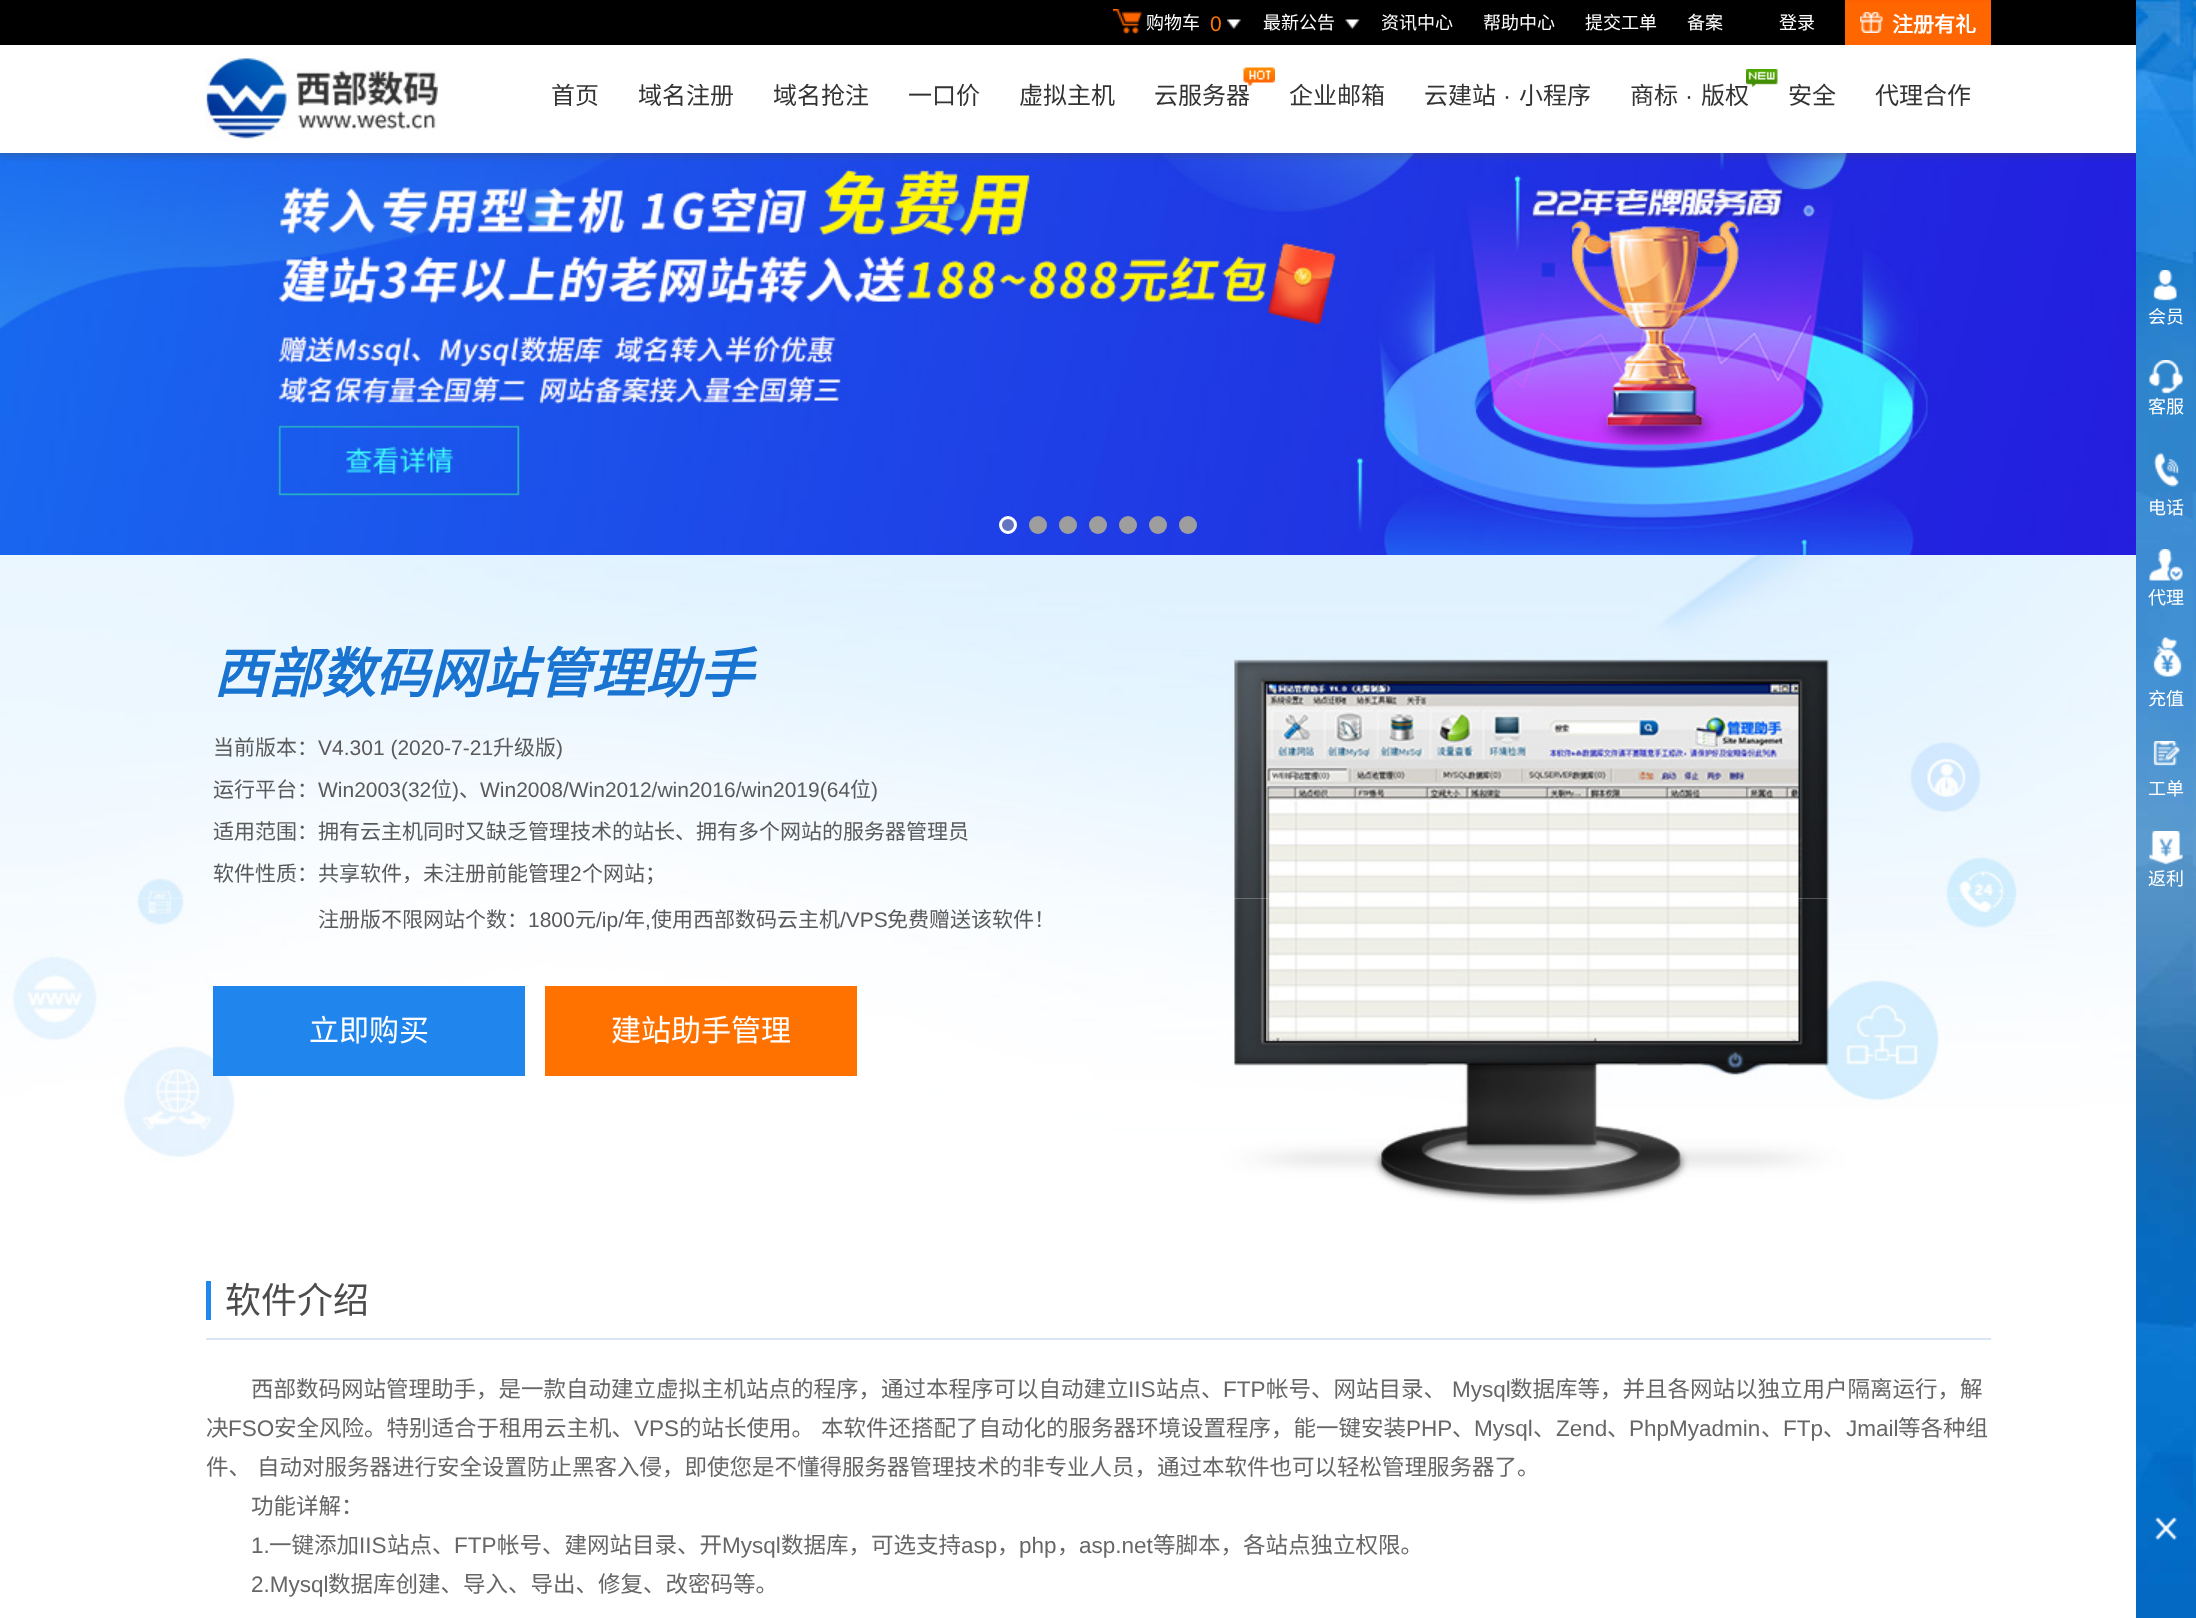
<!DOCTYPE html>
<meta charset="utf-8">
<style>body { margin: 0 } canvas { display: block }</style>
<canvas id="canvas" width="2196" height="1618"></canvas>
<script type="module">
  const canvas = document.getElementById("canvas");
  const ctx = canvas.getContext("2d");
  ctx.miterLimit = 4;
  ctx.fontKerning = "normal";
  async function loadImage(src) {
    const img = new Image();
    img.src = src;
    await img.decode();
    return img;
  }

  ctx.fillStyle = "#ffffff";
  ctx.fillRect(0, 0, 2196, 1618);
  ctx.drawImage(await loadImage("img8.png"), 0, 153, 2136, 402);
  ctx.save();
  ctx.beginPath();
  ctx.rect(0, 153, 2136, 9);
  ctx.clip();
  ctx.fillStyle = "rgba(70, 70, 70, 0.39)";
  ctx.filter = "blur(4px)";
  ctx.beginPath();
  ctx.rect(0, 2, 2196, 153);
  ctx.fill();
  ctx.filter = "none";
  ctx.restore();
  ctx.fillStyle = "#000000";
  ctx.fillRect(0, 0, 2136, 45);
  ctx.drawImage(await loadImage("img1.png"), 1113, 9, 29, 25);
  ctx.font = "18px Noto Sans CJK SC";
  ctx.fillStyle = "#ffffff";
  ctx.fillText("购物车", 1146, 29);
  ctx.font = "21px Liberation Sans";
  ctx.fillStyle = "#fe7402";
  ctx.fillText("0", 1210, 31);
  ctx.drawImage(await loadImage("img2.png"), 1227, 19, 14, 10);
  ctx.font = "18px Noto Sans CJK SC";
  ctx.fillStyle = "#ffffff";
  ctx.fillText("最新公告", 1263, 29);
  ctx.drawImage(await loadImage("img3.png"), 1345, 19, 15, 10);
  ctx.fillText("资讯中心", 1381, 29);
  ctx.fillText("帮助中心", 1483, 29);
  ctx.fillText("提交工单", 1585, 29);
  ctx.fillText("备案", 1687, 29);
  ctx.fillText("登录", 1779, 29);
  ctx.fillStyle = "#ff6600";
  ctx.fillRect(1845, 2, 146, 43);
  ctx.fillStyle = "#ff6000";
  ctx.fillRect(1845, 0, 146, 2);
  ctx.drawImage(await loadImage("img4.png"), 1860, 12, 23, 21);
  ctx.font = "bold 21px Noto Sans CJK SC";
  ctx.fillStyle = "#ffffff";
  ctx.fillText("注册有礼", 1892, 32);
  ctx.drawImage(await loadImage("img5.png"), 205, 57, 233, 84);
  ctx.font = "24px Noto Sans CJK SC";
  ctx.fillStyle = "#333333";
  ctx.fillText("首页", 551, 104);
  ctx.fillText("域名注册", 638, 104);
  ctx.fillText("域名抢注", 773, 104);
  ctx.fillText("一口价", 908, 104);
  ctx.fillText("虚拟主机", 1019, 104);
  ctx.fillText("云服务器", 1154, 104);
  ctx.drawImage(await loadImage("img6.png"), 1243, 67, 32, 19);
  ctx.fillText("企业邮箱", 1289, 104);
  ctx.fillText("云建站", 1424, 104);
  ctx.font = "24px Liberation Sans";
  ctx.fillText("·", 1503, 104);
  ctx.font = "24px Noto Sans CJK SC";
  ctx.fillText("小程序", 1519, 104);
  ctx.fillText("版权", 1701, 104);
  ctx.drawImage(await loadImage("img7.png"), 1746, 69, 32, 18);
  ctx.fillText("商标", 1630, 104);
  ctx.font = "24px Liberation Sans";
  ctx.fillText("·", 1685, 104);
  ctx.font = "24px Noto Sans CJK SC";
  ctx.fillText("安全", 1788, 104);
  ctx.fillText("代理合作", 1875, 104);
  ctx.fillStyle = "#6574bf";
  ctx.beginPath();
  ctx.arc(1008, 525, 7.5, 0, Math.PI * 2);
  ctx.fill();
  ctx.strokeStyle = "#ffffff";
  ctx.lineWidth = 3;
  ctx.stroke();
  ctx.fillStyle = "#9f9e9e";
  ctx.beginPath();
  ctx.arc(1038, 525, 9, 0, Math.PI * 2);
  ctx.fill();
  ctx.beginPath();
  ctx.arc(1068, 525, 9, 0, Math.PI * 2);
  ctx.fill();
  ctx.beginPath();
  ctx.arc(1098, 525, 9, 0, Math.PI * 2);
  ctx.fill();
  ctx.beginPath();
  ctx.arc(1128, 525, 9, 0, Math.PI * 2);
  ctx.fill();
  ctx.beginPath();
  ctx.arc(1158, 525, 9, 0, Math.PI * 2);
  ctx.fill();
  ctx.beginPath();
  ctx.arc(1188, 525, 9, 0, Math.PI * 2);
  ctx.fill();
  ctx.drawImage(await loadImage("img9.png"), 2136, 0, 60, 1618);
  ctx.drawImage(await loadImage("img10.png"), 2153, 270, 24, 31);
  ctx.font = "18px Noto Sans CJK SC";
  ctx.fillStyle = "#ffffff";
  ctx.fillText("会员", 2148, 323);
  ctx.drawImage(await loadImage("img11.png"), 2149, 360, 34, 34);
  ctx.fillText("客服", 2148, 413);
  ctx.drawImage(await loadImage("img12.png"), 2153, 453, 26, 34);
  ctx.fillText("电话", 2148, 514);
  ctx.drawImage(await loadImage("img13.png"), 2149, 549, 34, 32);
  ctx.fillText("代理", 2148, 604);
  ctx.drawImage(await loadImage("img14.png"), 2153, 637, 29, 40);
  ctx.fillText("充值", 2148, 705);
  ctx.drawImage(await loadImage("img15.png"), 2153, 741, 27, 25);
  ctx.fillText("工单", 2148, 795);
  ctx.drawImage(await loadImage("img16.png"), 2149, 831, 34, 34);
  ctx.fillText("返利", 2148, 885);
  ctx.drawImage(await loadImage("img17.png"), 2155, 1517, 22, 24);
  ctx.drawImage(await loadImage("img18.png"), 0, 555, 2136, 344);
  ctx.font = "italic bold 54px Noto Sans CJK SC";
  ctx.fillStyle = "#1974d1";
  ctx.fillText("西部数码网站管理助手", 213, 693);
  ctx.font = "21px Noto Sans CJK SC";
  ctx.fillStyle = "#5a5a5a";
  ctx.fillText("当前版本：", 213, 755);
  ctx.font = "21px Liberation Sans";
  ctx.fillText("V4.301 (2020-7-21", 318, 755);
  ctx.font = "21px Noto Sans CJK SC";
  ctx.fillText("升级版", 493, 755);
  ctx.font = "21px Liberation Sans";
  ctx.fillText(")", 556, 755);
  ctx.font = "21px Noto Sans CJK SC";
  ctx.fillText("运行平台：", 213, 797);
  ctx.font = "21px Liberation Sans";
  ctx.fillText("Win2003(32", 318, 797);
  ctx.font = "21px Noto Sans CJK SC";
  ctx.fillText("位", 431, 797);
  ctx.font = "21px Liberation Sans";
  ctx.fillText(")", 452, 797);
  ctx.font = "21px Noto Sans CJK SC";
  ctx.fillText("、", 459, 797);
  ctx.font = "21px Liberation Sans";
  ctx.fillText("Win2008/Win2012/win2016/win2019(64", 480, 797);
  ctx.font = "21px Noto Sans CJK SC";
  ctx.fillText("位", 850, 797);
  ctx.font = "21px Liberation Sans";
  ctx.fillText(")", 871, 797);
  ctx.font = "21px Noto Sans CJK SC";
  ctx.fillText("适用范围：拥有云主机同时又缺乏管理技术的站长、拥有多个网站的服务器管理员", 213, 839);
  ctx.fillText("软件性质：共享软件，未注册前能管理", 213, 881);
  ctx.font = "21px Liberation Sans";
  ctx.fillText("2", 570, 881);
  ctx.font = "21px Noto Sans CJK SC";
  ctx.fillText("个网站；", 582, 881);
  ctx.drawImage(await loadImage("img19.png"), 0, 898, 2136, 306);
  ctx.fillText("注册版不限网站个数：", 318, 927);
  ctx.font = "21px Liberation Sans";
  ctx.fillText("1800", 528, 927);
  ctx.font = "21px Noto Sans CJK SC";
  ctx.fillText("元", 575, 927);
  ctx.font = "21px Liberation Sans";
  ctx.fillText("/ip/", 596, 927);
  ctx.font = "21px Noto Sans CJK SC";
  ctx.fillText("年", 624, 927);
  ctx.font = "21px Liberation Sans";
  ctx.fillText(",", 645, 927);
  ctx.font = "21px Noto Sans CJK SC";
  ctx.fillText("使用西部数码云主机", 651, 927);
  ctx.font = "21px Liberation Sans";
  ctx.fillText("/VPS", 840, 927);
  ctx.font = "21px Noto Sans CJK SC";
  ctx.fillText("免费赠送该软件！", 887, 927);
  ctx.fillStyle = "#2086ee";
  ctx.fillRect(213, 986, 312, 90);
  ctx.font = "30px Noto Sans CJK SC";
  ctx.fillStyle = "#ffffff";
  ctx.fillText("立即购买", 309, 1041);
  ctx.fillStyle = "#ff7200";
  ctx.fillRect(545, 986, 312, 90);
  ctx.fillStyle = "#ffffff";
  ctx.fillText("建站助手管理", 611, 1041);
  ctx.fillStyle = "#d9e6f6";
  ctx.fillRect(206, 1338, 1785, 2);
  ctx.fillStyle = "#2087ed";
  ctx.fillRect(206, 1281, 5, 39);
  ctx.font = "36px Noto Sans CJK SC";
  ctx.fillStyle = "#4c4c4c";
  ctx.fillText("软件介绍", 225, 1313);
  ctx.font = "22.5px Noto Sans CJK SC";
  ctx.fillStyle = "#666666";
  ctx.fillText("西部数码网站管理助手，是一款自动建立虚拟主机站点的程序，通过本程序可以自动建立", 251, 1397);
  ctx.font = "22.5px Liberation Sans";
  ctx.fillText("IIS", 1128, 1397);
  ctx.font = "22.5px Noto Sans CJK SC";
  ctx.fillText("站点、", 1156, 1397);
  ctx.font = "22.5px Liberation Sans";
  ctx.fillText("FTP", 1223, 1397);
  ctx.font = "22.5px Noto Sans CJK SC";
  ctx.fillText("帐号、网站目录、", 1266, 1397);
  ctx.font = "22.5px Liberation Sans";
  ctx.fillText("Mysql", 1452, 1397);
  ctx.font = "22.5px Noto Sans CJK SC";
  ctx.fillText("数据库等，并且各网站以独立用户隔离运行，解", 1510, 1397);
  ctx.fillText("决", 206, 1436);
  ctx.font = "22.5px Liberation Sans";
  ctx.fillText("FSO", 228, 1436);
  ctx.font = "22.5px Noto Sans CJK SC";
  ctx.fillText("安全风险。特别适合于租用云主机、", 274, 1436);
  ctx.font = "22.5px Liberation Sans";
  ctx.fillText("VPS", 634, 1436);
  ctx.font = "22.5px Noto Sans CJK SC";
  ctx.fillText("的站长使用。", 679, 1436);
  ctx.fillText("本软件还搭配了自动化的服务器环境设置程序，能一键安装", 821, 1436);
  ctx.font = "22.5px Liberation Sans";
  ctx.fillText("PHP", 1406, 1436);
  ctx.font = "22.5px Noto Sans CJK SC";
  ctx.fillText("、", 1452, 1436);
  ctx.font = "22.5px Liberation Sans";
  ctx.fillText("Mysql", 1474, 1436);
  ctx.font = "22.5px Noto Sans CJK SC";
  ctx.fillText("、", 1533, 1436);
  ctx.font = "22.5px Liberation Sans";
  ctx.fillText("Zend", 1556, 1436);
  ctx.font = "22.5px Noto Sans CJK SC";
  ctx.fillText("、", 1607, 1436);
  ctx.font = "22.5px Liberation Sans";
  ctx.fillText("PhpMyadmin", 1629, 1436);
  ctx.font = "22.5px Noto Sans CJK SC";
  ctx.fillText("、", 1761, 1436);
  ctx.font = "22.5px Liberation Sans";
  ctx.fillText("FTp", 1783, 1436);
  ctx.font = "22.5px Noto Sans CJK SC";
  ctx.fillText("、", 1823, 1436);
  ctx.font = "22.5px Liberation Sans";
  ctx.fillText("Jmail", 1846, 1436);
  ctx.font = "22.5px Noto Sans CJK SC";
  ctx.fillText("等各种组", 1898, 1436);
  ctx.fillText("件、", 206, 1475);
  ctx.fillText("自动对服务器进行安全设置防止黑客入侵，即使您是不懂得服务器管理技术的非专业人员，通过本软件也可以轻松管理服务器了。", 257, 1475);
  ctx.fillText("功能详解：", 251, 1514);
  ctx.font = "22.5px Liberation Sans";
  ctx.fillText("1.", 251, 1553);
  ctx.font = "22.5px Noto Sans CJK SC";
  ctx.fillText("一键添加", 269, 1553);
  ctx.font = "22.5px Liberation Sans";
  ctx.fillText("IIS", 359, 1553);
  ctx.font = "22.5px Noto Sans CJK SC";
  ctx.fillText("站点、", 387, 1553);
  ctx.font = "22.5px Liberation Sans";
  ctx.fillText("FTP", 454, 1553);
  ctx.font = "22.5px Noto Sans CJK SC";
  ctx.fillText("帐号、建网站目录、开", 497, 1553);
  ctx.font = "22.5px Liberation Sans";
  ctx.fillText("Mysql", 722, 1553);
  ctx.font = "22.5px Noto Sans CJK SC";
  ctx.fillText("数据库，可选支持", 781, 1553);
  ctx.font = "22.5px Liberation Sans";
  ctx.fillText("asp", 961, 1553);
  ctx.font = "22.5px Noto Sans CJK SC";
  ctx.fillText("，", 997, 1553);
  ctx.font = "22.5px Liberation Sans";
  ctx.fillText("php", 1019, 1553);
  ctx.font = "22.5px Noto Sans CJK SC";
  ctx.fillText("，", 1057, 1553);
  ctx.font = "22.5px Liberation Sans";
  ctx.fillText("asp.net", 1079, 1553);
  ctx.font = "22.5px Noto Sans CJK SC";
  ctx.fillText("等脚本，各站点独立权限。", 1153, 1553);
  ctx.font = "22.5px Liberation Sans";
  ctx.fillText("2.Mysql", 251, 1592);
  ctx.font = "22.5px Noto Sans CJK SC";
  ctx.fillText("数据库创建、导入、导出、修复、改密码等。", 328, 1592);
</script>
